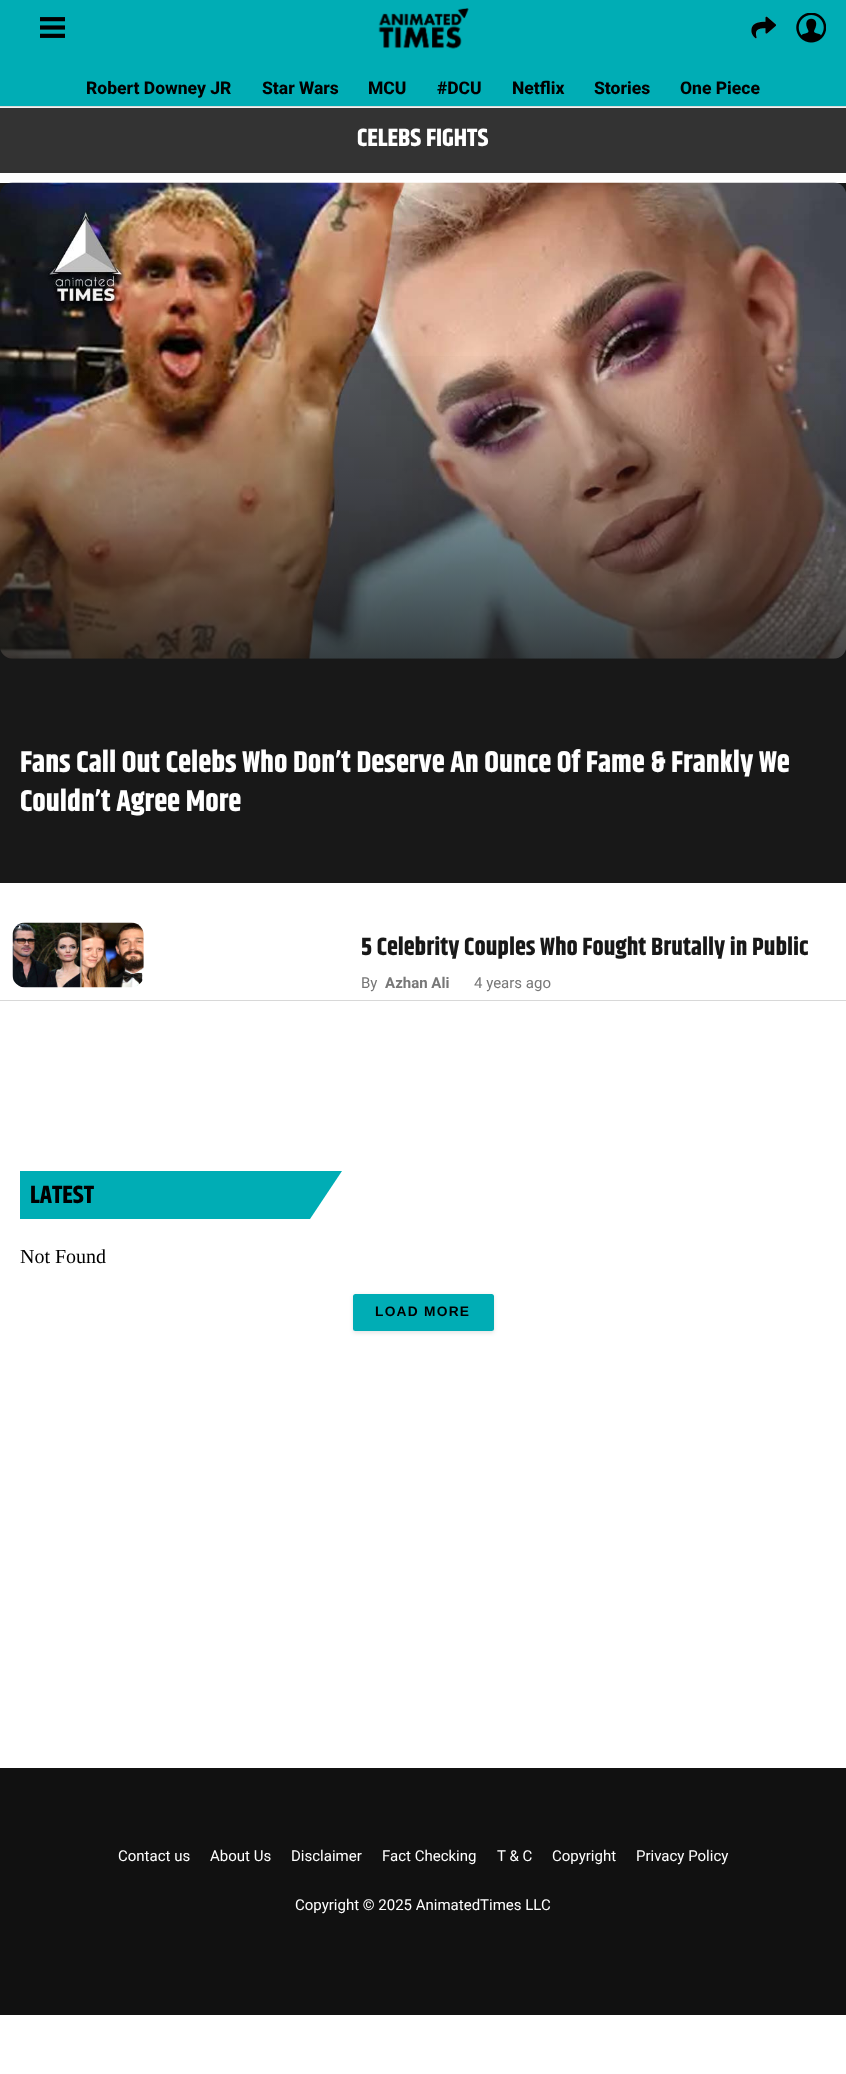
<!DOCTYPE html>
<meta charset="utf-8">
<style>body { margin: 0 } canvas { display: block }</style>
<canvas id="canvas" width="846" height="2074"></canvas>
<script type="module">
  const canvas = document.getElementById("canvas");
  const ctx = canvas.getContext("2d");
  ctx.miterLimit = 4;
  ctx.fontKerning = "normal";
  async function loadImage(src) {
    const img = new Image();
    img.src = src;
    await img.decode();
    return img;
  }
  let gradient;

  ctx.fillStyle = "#ffffff";
  ctx.fillRect(0, 0, 846, 2074);
  ctx.fillStyle = "#f2f2f2";
  ctx.fillRect(0, 107, 846, 1);
  ctx.fillStyle = "#d9d9d9";
  ctx.fillRect(0, 106, 846, 1);
  ctx.fillStyle = "#00adb5";
  ctx.fillRect(0, 0, 846, 106);
  ctx.drawImage(await loadImage("img1.png"), 40, 17, 25, 21);
  ctx.drawImage(await loadImage("img2.png"), 378, 8, 91, 41);
  ctx.drawImage(await loadImage("img3.png"), 751, 16, 25, 23);
  ctx.drawImage(await loadImage("img4.png"), 796, 13, 30, 30);
  ctx.font = "800 17.5px Roboto";
  ctx.fillStyle = "#000000";
  ctx.fillText("Robert Downey JR", 86, 94);
  ctx.fillText("Star Wars", 262, 94);
  ctx.fillText("MCU", 368, 94);
  ctx.fillText("#DCU", 437, 94);
  ctx.fillText("Netflix", 512, 94);
  ctx.fillText("Stories", 594, 94);
  ctx.fillText("One Piece", 680, 94);
  ctx.fillStyle = "#333333";
  ctx.fillRect(0, 108, 846, 65);
  ctx.font = "bold 25px Khand";
  ctx.fillStyle = "#ffffff";
  ctx.fillText("CELEBS FIGHTS", 357, 146);
  ctx.fillStyle = "#181818";
  ctx.fillRect(0, 183, 846, 700);
  ctx.drawImage(await loadImage("img5.png"), 0, 182, 846, 477);
  gradient = ctx.createLinearGradient(423, 348, 423, 734);
  gradient.addColorStop(0, "rgba(24, 24, 24, 0)");
  gradient.addColorStop(1, "#181818");
  ctx.fillStyle = gradient;
  ctx.fillRect(0, 356, 846, 303);
  ctx.font = "bold 30px Khand";
  ctx.fillStyle = "#ffffff";
  ctx.fillText("Fans Call Out Celebs Who Don’t Deserve An Ounce Of Fame & Frankly We", 20, 772);
  ctx.fillText("Couldn’t Agree More", 20, 811);
  ctx.fillStyle = "#d8d8d8";
  ctx.fillRect(0, 1000, 846, 1);
  ctx.drawImage(await loadImage("img6.png"), 12, 922, 132, 66);
  ctx.font = "bold 25px Khand";
  ctx.fillStyle = "#181818";
  ctx.fillText("5 Celebrity Couples Who Fought Brutally in Public", 361, 955);
  ctx.font = "15px Roboto";
  ctx.fillStyle = "#777777";
  ctx.fillText("By", 361, 988);
  ctx.font = "bold 15px Roboto";
  ctx.fillText("Azhan Ali", 385, 988);
  ctx.font = "15px Roboto";
  ctx.fillText("4 years ago", 474, 988);
  ctx.fillStyle = "#00adb5";
  ctx.beginPath();
  ctx.moveTo(20, 1171);
  ctx.lineTo(20, 1219);
  ctx.lineTo(310, 1219);
  ctx.lineTo(342, 1171);
  ctx.closePath();
  ctx.fill();
  ctx.font = "bold 25px Khand";
  ctx.fillStyle = "#000000";
  ctx.fillText("LATEST", 30, 1203);
  ctx.font = "20px Liberation Serif";
  ctx.fillText("Not Found", 20, 1263);
  ctx.fillStyle = "rgba(0, 0, 0, 0.1)";
  ctx.filter = "blur(2px)";
  ctx.beginPath();
  ctx.roundRect(353, 1295, 141, 38, 2.5);
  ctx.fill();
  ctx.filter = "none";
  ctx.fillStyle = "#00adb5";
  ctx.beginPath();
  ctx.roundRect(353, 1294, 141, 37, 2.5);
  ctx.fill();
  ctx.letterSpacing = "1.25px";
  ctx.font = "bold 13.75px Liberation Sans";
  ctx.fillStyle = "#000000";
  ctx.fillText("LOAD MORE", 375, 1316);
  ctx.fillStyle = "#111111";
  ctx.fillRect(0, 1768, 846, 247);
  ctx.letterSpacing = "0px";
  ctx.font = "15px Roboto";
  ctx.fillStyle = "#ffffff";
  ctx.fillText("Contact us", 118, 1861);
  ctx.fillText("About Us", 210, 1861);
  ctx.fillText("Disclaimer", 291, 1861);
  ctx.fillText("Fact Checking", 382, 1861);
  ctx.fillText("T & C", 497, 1861);
  ctx.fillText("Copyright", 552, 1861);
  ctx.fillText("Privacy Policy", 636, 1861);
  ctx.fillText("Copyright © 2025 AnimatedTimes LLC", 295, 1910);
</script>
